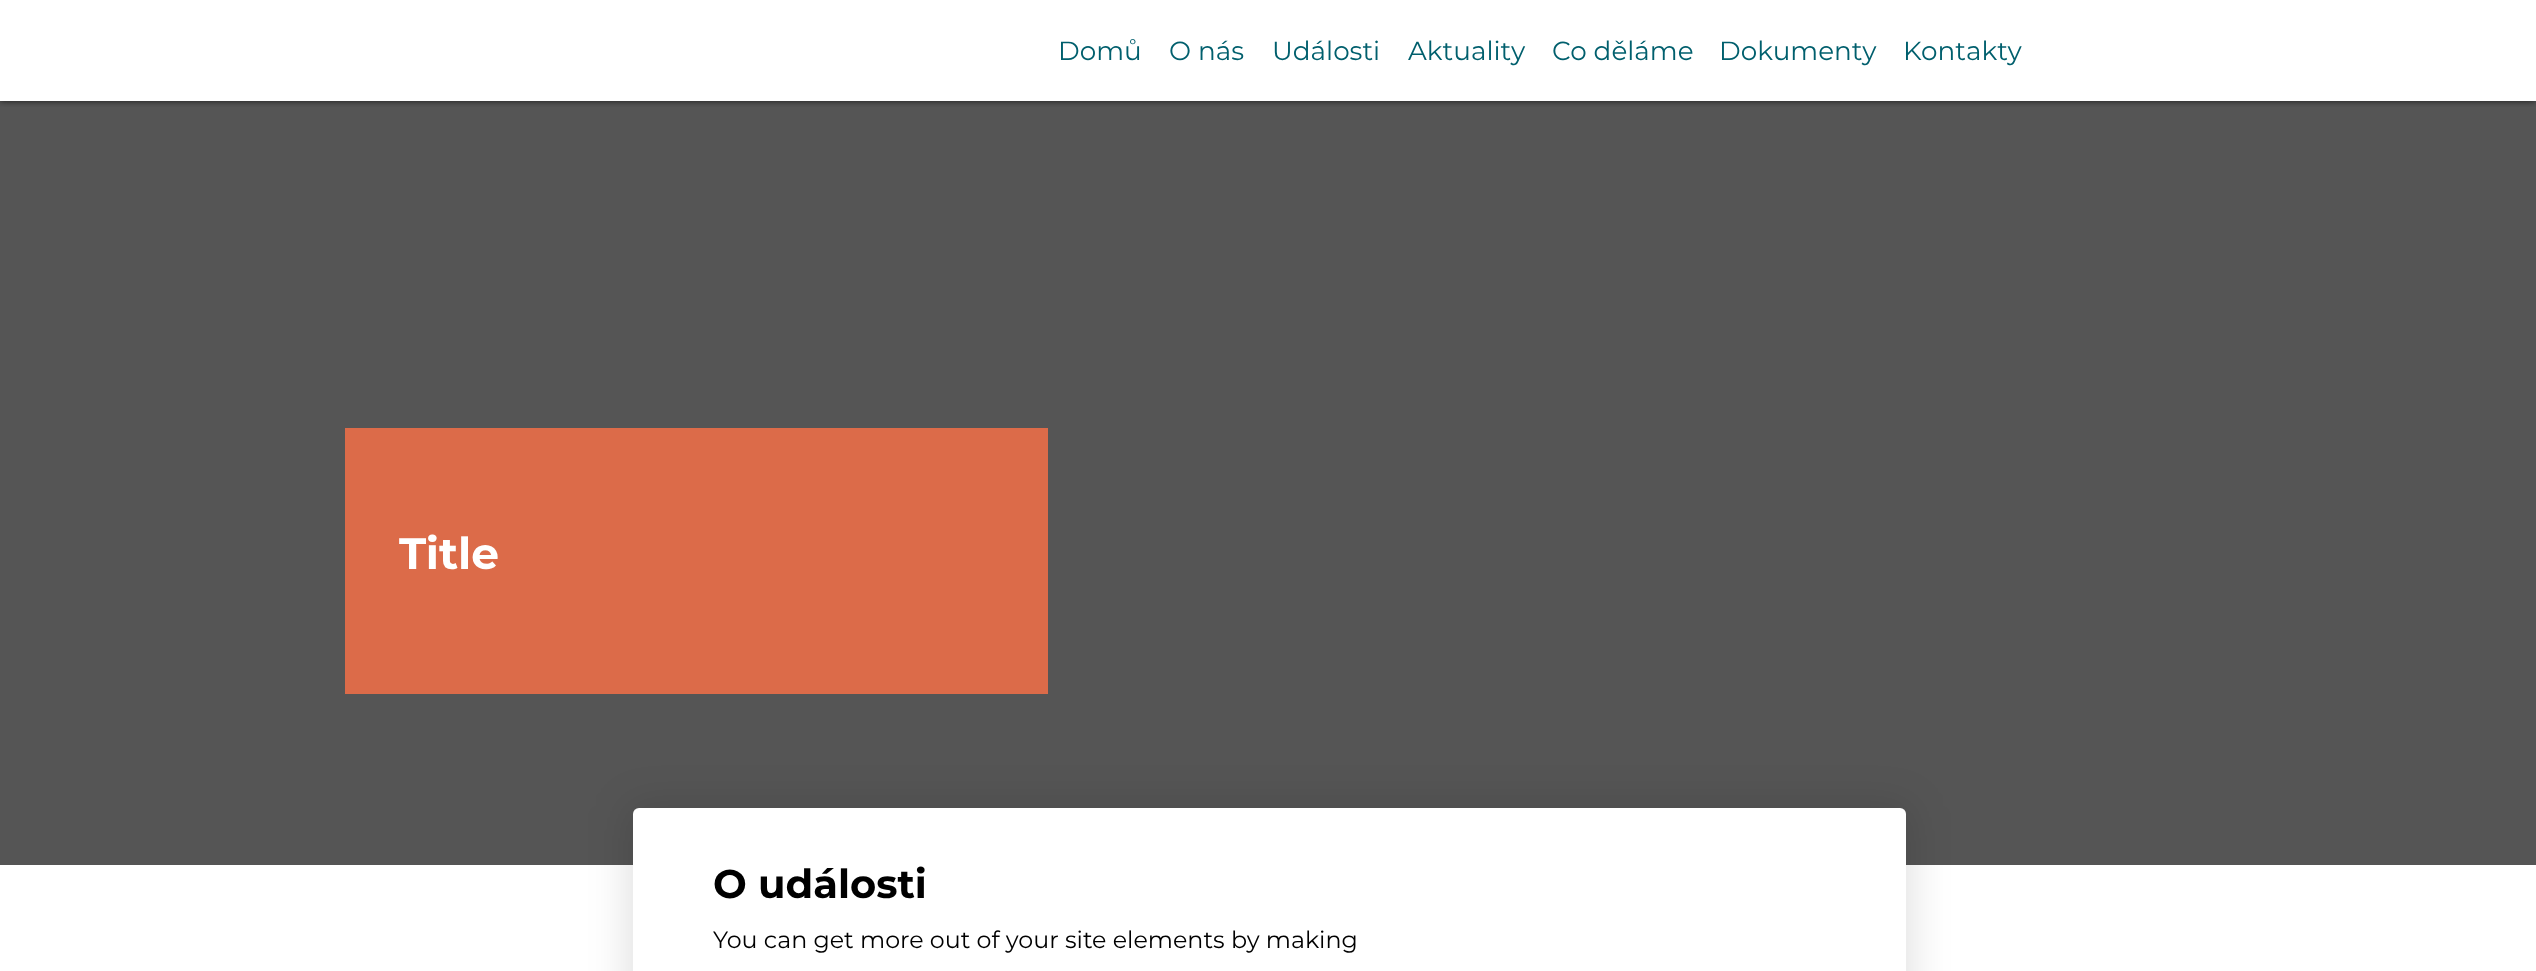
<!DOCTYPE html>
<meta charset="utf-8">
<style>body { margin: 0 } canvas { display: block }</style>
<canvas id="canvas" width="2536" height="971"></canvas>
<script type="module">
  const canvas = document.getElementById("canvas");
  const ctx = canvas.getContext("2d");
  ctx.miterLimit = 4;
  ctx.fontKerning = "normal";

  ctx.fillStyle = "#ffffff";
  ctx.fillRect(0, 0, 2536, 971);
  ctx.fillStyle = "#555555";
  ctx.fillRect(0, 101, 2536, 764);
  ctx.save();
  ctx.beginPath();
  ctx.rect(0, 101, 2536, 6);
  ctx.clip();
  ctx.fillStyle = "rgba(0, 0, 0, 0.7)";
  ctx.filter = "blur(3px)";
  ctx.beginPath();
  ctx.rect(0, 0, 2536, 101);
  ctx.fill();
  ctx.filter = "none";
  ctx.restore();
  ctx.font = "26.25px Montserrat";
  ctx.fillStyle = "#005f6d";
  ctx.fillText("Domů", 1058, 60);
  ctx.fillText("O nás", 1169, 60);
  ctx.fillText("Události", 1272, 60);
  ctx.fillText("Aktuality", 1408, 60);
  ctx.fillText("Co děláme", 1552, 60);
  ctx.fillText("Dokumenty", 1719, 60);
  ctx.fillText("Kontakty", 1903, 60);
  ctx.fillStyle = "#dc6b49";
  ctx.fillRect(345, 428, 703, 266);
  ctx.font = "bold 44px Montserrat";
  ctx.fillStyle = "#ffffff";
  ctx.fillText("Title", 399, 569);
  ctx.fillStyle = "rgba(0, 0, 0, 0.12)";
  ctx.filter = "blur(20px)";
  ctx.beginPath();
  ctx.roundRect(628, 805, 1283, 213, 11);
  ctx.fill();
  ctx.filter = "none";
  ctx.fillStyle = "#ffffff";
  ctx.beginPath();
  ctx.roundRect(633, 808, 1273, 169, 6);
  ctx.fill();
  ctx.font = "bold 40px Montserrat";
  ctx.fillStyle = "#000000";
  ctx.fillText("O události", 713, 898);
  ctx.font = "23.75px Montserrat";
  ctx.fillText("You can get more out of your site elements by making", 713, 948);
</script>
